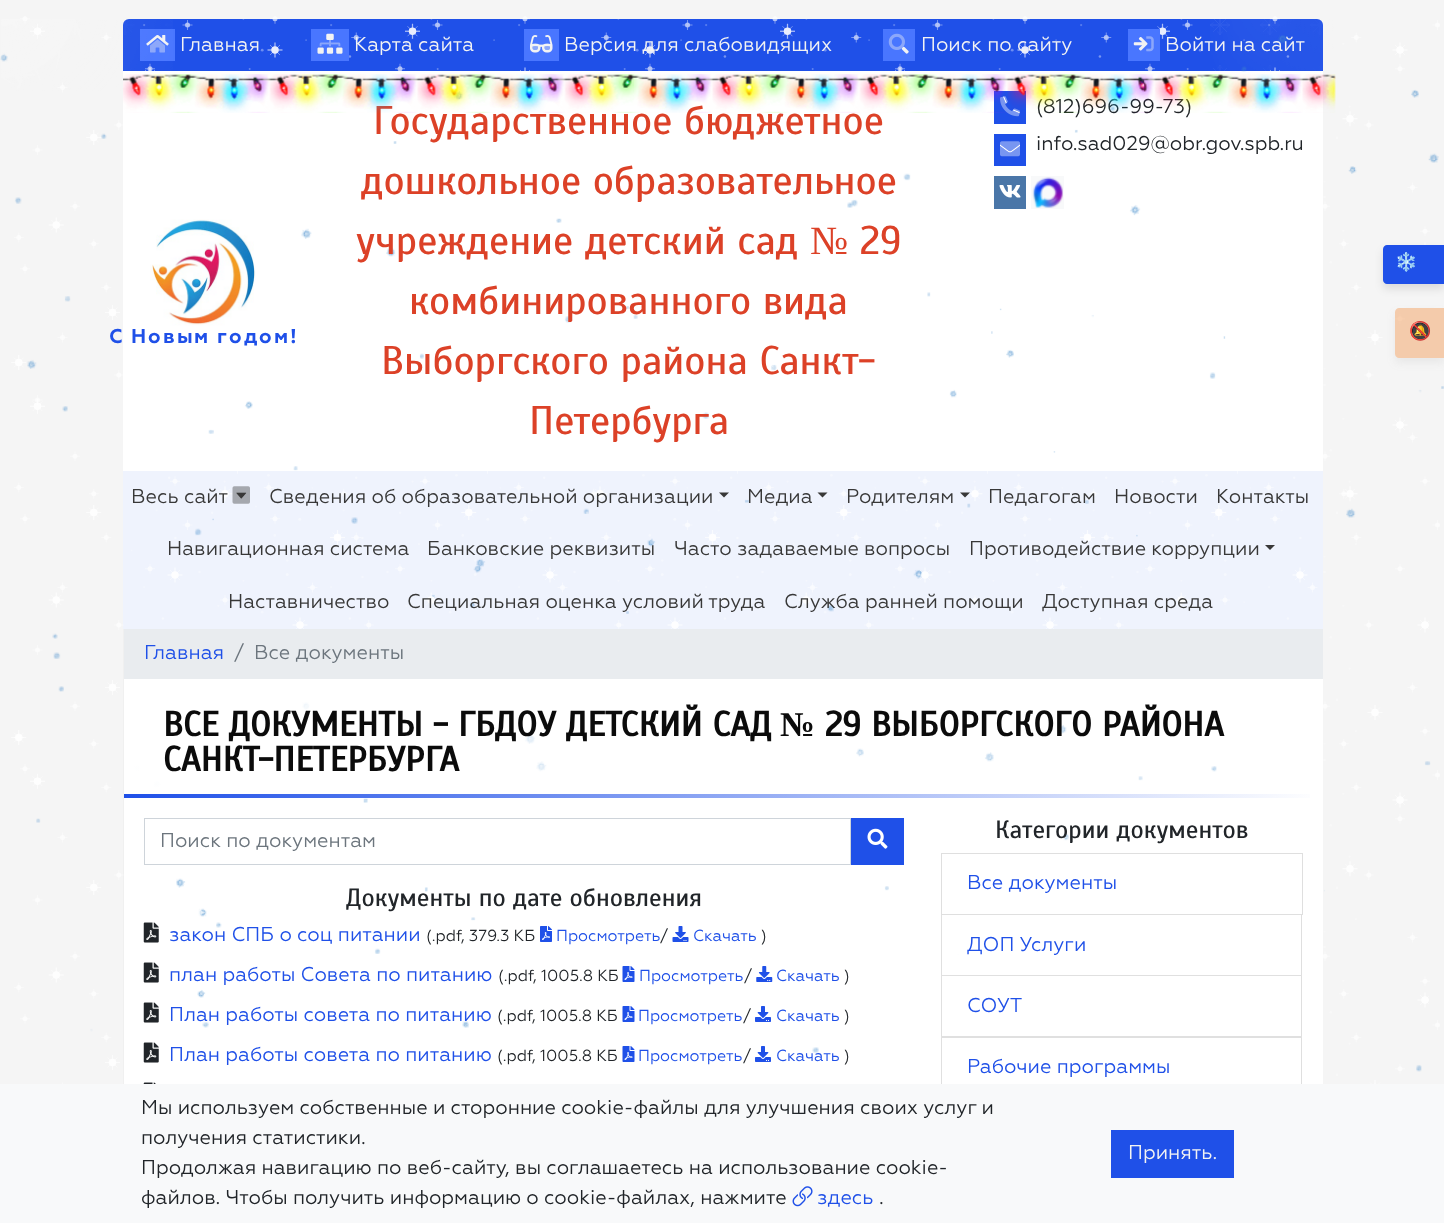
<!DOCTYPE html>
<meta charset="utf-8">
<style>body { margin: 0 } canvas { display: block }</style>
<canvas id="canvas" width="1444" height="1223"></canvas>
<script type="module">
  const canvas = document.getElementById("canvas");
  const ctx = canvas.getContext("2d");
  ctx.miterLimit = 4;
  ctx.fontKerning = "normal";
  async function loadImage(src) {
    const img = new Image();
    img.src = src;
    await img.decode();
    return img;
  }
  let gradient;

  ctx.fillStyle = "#f5f5f5";
  ctx.fillRect(0, 0, 1444, 1223);
  ctx.fillStyle = "#1f50e8";
  ctx.beginPath();
  ctx.roundRect(123, 19, 1200, 52, [6, 6, 0, 0]);
  ctx.fill();
  ctx.fillStyle = "#ffffff";
  ctx.fillRect(123, 71, 1200, 400);
  ctx.fillStyle = "#eff3fd";
  ctx.fillRect(123, 471, 1200, 158);
  ctx.fillStyle = "#ffffff";
  ctx.fillRect(124, 679, 1199, 405);
  ctx.fillStyle = "#f0f0f0";
  ctx.fillRect(123, 629, 1, 455);
  ctx.drawImage(await loadImage("img6.png"), 0, 35, 1444, 1037);
  ctx.drawImage(await loadImage("img2.png"), 131, 19, 1226, 1064);
  ctx.drawImage(await loadImage("img1.png"), 14, 16, 1426, 1068);
  ctx.drawImage(await loadImage("img3.png"), 11, 23, 1418, 1061);
  ctx.fillStyle = "#4976ff";
  ctx.fillRect(140, 29, 35, 32);
  ctx.drawImage(await loadImage("img7.png"), 146, 35, 23, 11);
  ctx.drawImage(await loadImage("img8.png"), 150, 39, 15, 14);
  ctx.font = "40px Scada";
  ctx.fillStyle = "#dc4127";
  ctx.fillText("Государственное бюджетное", 373, 134);
  ctx.fillStyle = "#1f50e8";
  ctx.fillRect(994, 91, 32, 33);
  ctx.drawImage(await loadImage("img20.png"), 1003, 96, 17, 18);
  ctx.drawImage(await loadImage("img19.png"), 1000, 96, 20, 21);
  ctx.font = "20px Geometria";
  ctx.fillStyle = "#212529";
  ctx.fillText("(812)696-99-73)", 1036, 113);
  ctx.drawImage(await loadImage("img17.png"), 123, 74, 1213, 39);
  ctx.drawImage(await loadImage("img4.png"), 1, 19, 172, 72);
  ctx.fillStyle = "#f3f3f3";
  ctx.fillText("Войти на сайт", 1165, 51);
  ctx.drawImage(await loadImage("img5.png"), 1210, 19, 124, 75);
  ctx.fillText("Главная", 180, 51);
  ctx.fillStyle = "#4976ff";
  ctx.fillRect(311, 29, 38, 32);
  ctx.drawImage(await loadImage("img9.png"), 317, 33, 26, 21);
  ctx.drawImage(await loadImage("img10.png"), 319, 40, 22, 7);
  ctx.fillStyle = "#f3f3f3";
  ctx.fillText("Карта сайта", 354, 51);
  ctx.fillStyle = "#4976ff";
  ctx.fillRect(524, 29, 35, 32);
  ctx.drawImage(await loadImage("img11.png"), 530, 35, 23, 18);
  ctx.drawImage(await loadImage("img12.png"), 532, 46, 18, 4);
  ctx.fillStyle = "#f3f3f3";
  ctx.fillText("Версия для слабовидящих", 564, 51);
  ctx.fillStyle = "#4976ff";
  ctx.fillRect(883, 29, 32, 32);
  ctx.drawImage(await loadImage("img14.png"), 901, 46, 8, 8);
  ctx.drawImage(await loadImage("img13.png"), 888, 33, 17, 17);
  ctx.fillStyle = "#f3f3f3";
  ctx.fillText("Поиск по сайту", 921, 51);
  ctx.fillStyle = "#4976ff";
  ctx.fillRect(1128, 29, 32, 32);
  ctx.drawImage(await loadImage("img15.png"), 1133, 37, 15, 14);
  ctx.drawImage(await loadImage("img16.png"), 1146, 36, 8, 16);
  ctx.drawImage(await loadImage("img18.png"), 150, 218, 106, 110);
  ctx.font = "bold 20px Geometria";
  ctx.fillStyle = "#1f50e8";
  ctx.fillText("С", 109, 343);
  ctx.fillText("Н", 131, 343);
  ctx.fillText("о", 148, 343);
  ctx.fillText("в", 163, 343);
  ctx.fillText("ы", 177, 343);
  ctx.fillText("м", 194, 343);
  ctx.fillText("г", 217, 343);
  ctx.fillText("о", 229, 343);
  ctx.fillText("д", 244, 343);
  ctx.fillText("о", 259, 343);
  ctx.fillText("м", 274, 343);
  ctx.fillText("!", 290, 343);
  ctx.font = "40px Scada";
  ctx.fillStyle = "#dc4127";
  ctx.fillText("дошкольное образовательное", 361, 194);
  ctx.fillText("учреждение детский сад", 356, 254);
  ctx.font = "40px Liberation Serif";
  ctx.fillText("№", 810, 254);
  ctx.font = "40px Scada";
  ctx.fillText("29", 860, 254);
  ctx.fillText("комбинированного вида", 409, 314);
  ctx.fillText("Выборгского района Санкт-", 381, 374);
  ctx.fillText("Петербурга", 529, 434);
  ctx.fillStyle = "#1f50e8";
  ctx.fillRect(994, 134, 32, 32);
  ctx.drawImage(await loadImage("img22.png"), 1000, 144, 20, 9);
  ctx.drawImage(await loadImage("img21.png"), 1000, 141, 20, 16);
  ctx.font = "20px Geometria";
  ctx.fillStyle = "#212529";
  ctx.fillText("info.sad029@obr.gov.spb.ru", 1036, 150);
  ctx.fillStyle = "#4a76a8";
  ctx.fillRect(994, 176, 32, 33);
  ctx.drawImage(await loadImage("img23.png"), 999, 185, 22, 13);
  ctx.fillStyle = "#f8f9fa";
  ctx.fillRect(1031, 176, 33, 33);
  ctx.drawImage(await loadImage("img24.png"), 1032, 177, 31, 31);
  ctx.fillStyle = "rgba(0, 0, 0, 0.1)";
  ctx.filter = "blur(4px)";
  ctx.beginPath();
  ctx.roundRect(1383, 250, 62, 39, 4);
  ctx.fill();
  ctx.filter = "none";
  ctx.fillStyle = "#1f50e8";
  ctx.beginPath();
  ctx.moveTo(1387, 245);
  ctx.lineTo(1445, 245);
  ctx.lineTo(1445, 284);
  ctx.lineTo(1387, 284);
  ctx.bezierCurveTo(1385, 284, 1383, 282, 1383, 280);
  ctx.lineTo(1383, 249);
  ctx.bezierCurveTo(1383, 247, 1385, 245, 1387, 245);
  ctx.closePath();
  ctx.fill();
  ctx.font = "18px Noto Color Emoji";
  ctx.fillStyle = "#ffffff";
  ctx.fillText("❄️", 1395, 268);
  ctx.save();
  ctx.beginPath();
  ctx.moveTo(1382, 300);
  ctx.lineTo(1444, 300);
  ctx.lineTo(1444, 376);
  ctx.lineTo(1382, 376);
  ctx.closePath();
  ctx.moveTo(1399, 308);
  ctx.lineTo(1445, 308);
  ctx.lineTo(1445, 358);
  ctx.lineTo(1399, 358);
  ctx.bezierCurveTo(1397, 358, 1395, 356, 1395, 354);
  ctx.lineTo(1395, 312);
  ctx.bezierCurveTo(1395, 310, 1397, 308, 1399, 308);
  ctx.closePath();
  ctx.clip("evenodd");
  ctx.fillStyle = "rgba(123, 123, 123, 0.1)";
  ctx.filter = "blur(4px)";
  ctx.beginPath();
  ctx.roundRect(1395, 313, 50, 50, 4);
  ctx.fill();
  ctx.filter = "none";
  ctx.restore();
  ctx.fillStyle = "rgba(244, 162, 97, 0.5)";
  ctx.beginPath();
  ctx.moveTo(1399, 308);
  ctx.lineTo(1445, 308);
  ctx.lineTo(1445, 358);
  ctx.lineTo(1399, 358);
  ctx.bezierCurveTo(1397, 358, 1395, 356, 1395, 354);
  ctx.lineTo(1395, 312);
  ctx.bezierCurveTo(1395, 310, 1397, 308, 1399, 308);
  ctx.closePath();
  ctx.fill();
  ctx.fillStyle = "#ffffff";
  ctx.fillText("🔕", 1409, 337);
  ctx.font = "20px Geometria";
  ctx.fillStyle = "#383838";
  ctx.fillText("Весь сайт", 131, 503);
  ctx.drawImage(await loadImage("img26.png"), 236, 492, 11, 7);
  ctx.drawImage(await loadImage("img25.png"), 232, 486, 18, 18);
  ctx.fillText("Сведения об образовательной организации", 269, 503);
  ctx.beginPath();
  ctx.moveTo(719, 492.5);
  ctx.lineTo(729, 492.5);
  ctx.lineTo(724, 497.5);
  ctx.closePath();
  ctx.fill();
  ctx.fillText("Медиа", 747, 503);
  ctx.beginPath();
  ctx.moveTo(817.5, 492.5);
  ctx.lineTo(827.5, 492.5);
  ctx.lineTo(822.5, 497.5);
  ctx.closePath();
  ctx.fill();
  ctx.fillText("Родителям", 846, 503);
  ctx.beginPath();
  ctx.moveTo(960, 492.5);
  ctx.lineTo(970, 492.5);
  ctx.lineTo(965, 497.5);
  ctx.closePath();
  ctx.fill();
  ctx.fillText("Педагогам", 988, 503);
  ctx.fillText("Новости", 1114, 503);
  ctx.fillText("Контакты", 1216, 503);
  ctx.fillText("Навигационная система", 167, 555);
  ctx.fillText("Банковские реквизиты", 427, 555);
  ctx.fillText("Часто задаваемые вопросы", 674, 555);
  ctx.fillText("Противодействие коррупции", 969, 555);
  ctx.beginPath();
  ctx.moveTo(1265, 545);
  ctx.lineTo(1275, 545);
  ctx.lineTo(1270, 550);
  ctx.closePath();
  ctx.fill();
  ctx.fillText("Наставничество", 228, 608);
  ctx.fillText("Специальная оценка условий труда", 407, 608);
  ctx.fillText("Служба ранней помощи", 784, 608);
  ctx.fillText("Доступная среда", 1042, 608);
  ctx.fillStyle = "#e9ecef";
  ctx.fillRect(124, 629, 1199, 50);
  ctx.fillStyle = "#1f50e8";
  ctx.fillText("Главная", 144, 659);
  ctx.fillStyle = "#6c757d";
  ctx.fillText("/", 234, 659);
  ctx.fillText("Все документы", 254, 659);
  gradient = ctx.createLinearGradient(124, 738, 1323, 738);
  gradient.addColorStop(0, "#ffffff");
  gradient.addColorStop(1, "rgba(255, 255, 255, 0)");
  ctx.fillStyle = gradient;
  ctx.fillRect(133, 702, 1083, 86);
  ctx.font = "bold 34.7px Scada";
  ctx.fillStyle = "#0b0b0b";
  ctx.fillText("ВСЕ ДОКУМЕНТЫ - ГБДОУ ДЕТСКИЙ САД", 163, 736);
  ctx.font = "bold 34.7px Liberation Serif";
  ctx.fillText("№", 780, 736);
  ctx.font = "bold 34.7px Scada";
  ctx.fillText("29 ВЫБОРГСКОГО РАЙОНА", 825, 736);
  ctx.fillText("САНКТ-ПЕТЕРБУРГА", 163, 771);
  gradient = ctx.createLinearGradient(124, 796, 1323, 796);
  gradient.addColorStop(0, "#1f50e8");
  gradient.addColorStop(1, "#ffffff");
  ctx.fillStyle = gradient;
  ctx.fillRect(124, 794, 1186, 4);
  ctx.fillStyle = "#ffffff";
  ctx.fillRect(340, 832, 8, 9);
  ctx.strokeStyle = "#ced4da";
  ctx.strokeRect(144.5, 818.5, 706, 46);
  ctx.font = "20px Geometria";
  ctx.fillStyle = "#6c757d";
  ctx.fillText("Поиск по документам", 160, 847);
  ctx.fillStyle = "#1f50e8";
  ctx.fillRect(851, 818, 53, 47);
  ctx.drawImage(await loadImage("img27.png"), 867, 828, 21, 21);
  ctx.font = "25px Scada";
  ctx.fillStyle = "#212529";
  ctx.fillText("Документы по дате обновления", 346, 906);
  ctx.drawImage(await loadImage("img28.png"), 143, 922, 16, 21);
  ctx.font = "20px Geometria";
  ctx.fillStyle = "#1f50e8";
  ctx.fillText("закон СПБ о соц питании", 169, 941);
  ctx.font = "16px Geometria";
  ctx.fillStyle = "#212529";
  ctx.fillText("(.pdf, 379.3 КБ", 426, 941);
  ctx.drawImage(await loadImage("img29.png"), 540, 926, 12, 16);
  ctx.fillStyle = "#1f50e8";
  ctx.fillText("Просмотреть", 556, 941);
  ctx.fillStyle = "#212529";
  ctx.fillText("/", 660, 941);
  ctx.drawImage(await loadImage("img30.png"), 672, 926, 17, 16);
  ctx.fillStyle = "#1f50e8";
  ctx.fillText("Скачать", 693, 941);
  ctx.fillStyle = "#212529";
  ctx.fillText(")", 761, 941);
  ctx.drawImage(await loadImage("img28.png"), 143, 962, 16, 21);
  ctx.font = "20px Geometria";
  ctx.fillStyle = "#1f50e8";
  ctx.fillText("план работы Совета по питанию", 169, 981);
  ctx.font = "16px Geometria";
  ctx.fillStyle = "#212529";
  ctx.fillText("(.pdf, 1005.8 КБ", 498, 981);
  ctx.drawImage(await loadImage("img31.png"), 622, 966, 13, 16);
  ctx.fillStyle = "#1f50e8";
  ctx.fillText("Просмотреть", 639, 981);
  ctx.fillStyle = "#212529";
  ctx.fillText("/", 744, 981);
  ctx.drawImage(await loadImage("img32.png"), 756, 966, 17, 16);
  ctx.fillStyle = "#1f50e8";
  ctx.fillText("Скачать", 776, 981);
  ctx.fillStyle = "#212529";
  ctx.fillText(")", 844, 981);
  ctx.drawImage(await loadImage("img28.png"), 143, 1002, 16, 21);
  ctx.font = "20px Geometria";
  ctx.fillStyle = "#1f50e8";
  ctx.fillText("План работы совета по питанию", 169, 1021);
  ctx.font = "16px Geometria";
  ctx.fillStyle = "#212529";
  ctx.fillText("(.pdf, 1005.8 КБ", 497, 1021);
  ctx.drawImage(await loadImage("img31.png"), 622, 1006, 13, 16);
  ctx.fillStyle = "#1f50e8";
  ctx.fillText("Просмотреть", 638, 1021);
  ctx.fillStyle = "#212529";
  ctx.fillText("/", 743, 1021);
  ctx.drawImage(await loadImage("img33.png"), 755, 1006, 16, 16);
  ctx.fillStyle = "#1f50e8";
  ctx.fillText("Скачать", 776, 1021);
  ctx.fillStyle = "#212529";
  ctx.fillText(")", 844, 1021);
  ctx.drawImage(await loadImage("img28.png"), 143, 1042, 16, 21);
  ctx.font = "20px Geometria";
  ctx.fillStyle = "#1f50e8";
  ctx.fillText("План работы совета по питанию", 169, 1061);
  ctx.font = "16px Geometria";
  ctx.fillStyle = "#212529";
  ctx.fillText("(.pdf, 1005.8 КБ", 497, 1061);
  ctx.drawImage(await loadImage("img31.png"), 622, 1046, 13, 16);
  ctx.fillStyle = "#1f50e8";
  ctx.fillText("Просмотреть", 638, 1061);
  ctx.fillStyle = "#212529";
  ctx.fillText("/", 743, 1061);
  ctx.drawImage(await loadImage("img33.png"), 755, 1046, 16, 16);
  ctx.fillStyle = "#1f50e8";
  ctx.fillText("Скачать", 776, 1061);
  ctx.fillStyle = "#212529";
  ctx.fillText(")", 844, 1061);
  ctx.drawImage(await loadImage("img34.png"), 143, 1082, 13, 2);
  ctx.font = "25px Scada";
  ctx.fillText("Категории документов", 995, 838);
  ctx.strokeStyle = "#dfdfdf";
  ctx.strokeRect(941.5, 853.5, 361, 61);
  ctx.font = "20px Geometria";
  ctx.fillStyle = "#1f50e8";
  ctx.fillText("Все документы", 967, 889);
  ctx.fillStyle = "#ffffff";
  ctx.fillRect(952, 955, 10, 11);
  ctx.fillStyle = "#dfdfdf";
  ctx.beginPath();
  ctx.moveTo(1302, 915);
  ctx.lineTo(1302, 976);
  ctx.lineTo(1301, 975);
  ctx.lineTo(1301, 915);
  ctx.closePath();
  ctx.fill();
  ctx.fillStyle = "rgba(0, 0, 0, 0.12)";
  ctx.beginPath();
  ctx.moveTo(1302, 976);
  ctx.lineTo(941, 976);
  ctx.lineTo(942, 975);
  ctx.lineTo(1301, 975);
  ctx.closePath();
  ctx.fill();
  ctx.beginPath();
  ctx.moveTo(941, 976);
  ctx.lineTo(941, 915);
  ctx.lineTo(942, 915);
  ctx.lineTo(942, 975);
  ctx.closePath();
  ctx.fill();
  ctx.fillStyle = "#1f50e8";
  ctx.fillText("ДОП Услуги", 967, 951);
  ctx.fillStyle = "#dfdfdf";
  ctx.beginPath();
  ctx.moveTo(1302, 976);
  ctx.lineTo(1302, 1038);
  ctx.lineTo(1301, 1036);
  ctx.lineTo(1301, 976);
  ctx.closePath();
  ctx.fill();
  ctx.fillStyle = "rgba(0, 0, 0, 0.12)";
  ctx.beginPath();
  ctx.moveTo(1302, 1038);
  ctx.lineTo(941, 1038);
  ctx.lineTo(942, 1036);
  ctx.lineTo(1301, 1036);
  ctx.closePath();
  ctx.fill();
  ctx.beginPath();
  ctx.moveTo(941, 1038);
  ctx.lineTo(941, 976);
  ctx.lineTo(942, 976);
  ctx.lineTo(942, 1036);
  ctx.closePath();
  ctx.fill();
  ctx.fillStyle = "#1f50e8";
  ctx.fillText("СОУТ", 967, 1012);
  ctx.fillStyle = "#dfdfdf";
  ctx.beginPath();
  ctx.moveTo(1302, 1038);
  ctx.lineTo(1302, 1099);
  ctx.lineTo(1301, 1098);
  ctx.lineTo(1301, 1038);
  ctx.closePath();
  ctx.fill();
  ctx.fillStyle = "rgba(0, 0, 0, 0.12)";
  ctx.beginPath();
  ctx.moveTo(941, 1099);
  ctx.lineTo(941, 1038);
  ctx.lineTo(942, 1038);
  ctx.lineTo(942, 1098);
  ctx.closePath();
  ctx.fill();
  ctx.fillStyle = "#1f50e8";
  ctx.fillText("Рабочие программы", 967, 1073);
  ctx.fillStyle = "#f8f9fa";
  ctx.fillRect(0, 1084, 1444, 139);
  ctx.fillStyle = "#212529";
  ctx.fillText("Мы используем собственные и сторонние cookie-файлы для улучшения своих услуг и", 141, 1114);
  ctx.fillText("получения статистики.", 141, 1144);
  ctx.fillText("Продолжая навигацию по веб-сайту, вы соглашаетесь на использование cookie-", 141, 1174);
  ctx.fillText("файлов. Чтобы получить информацию о cookie-файлах, нажмите", 141, 1204);
  ctx.drawImage(await loadImage("img35.png"), 792, 1186, 21, 21);
  ctx.fillStyle = "#1f50e8";
  ctx.fillText("здесь", 817, 1204);
  ctx.fillStyle = "#212529";
  ctx.fillText(".", 879, 1204);
  ctx.fillStyle = "#1f50e8";
  ctx.fillRect(1111, 1130, 123, 48);
  ctx.fillStyle = "#f3f3f3";
  ctx.fillText("Принять.", 1128, 1159);
</script>
